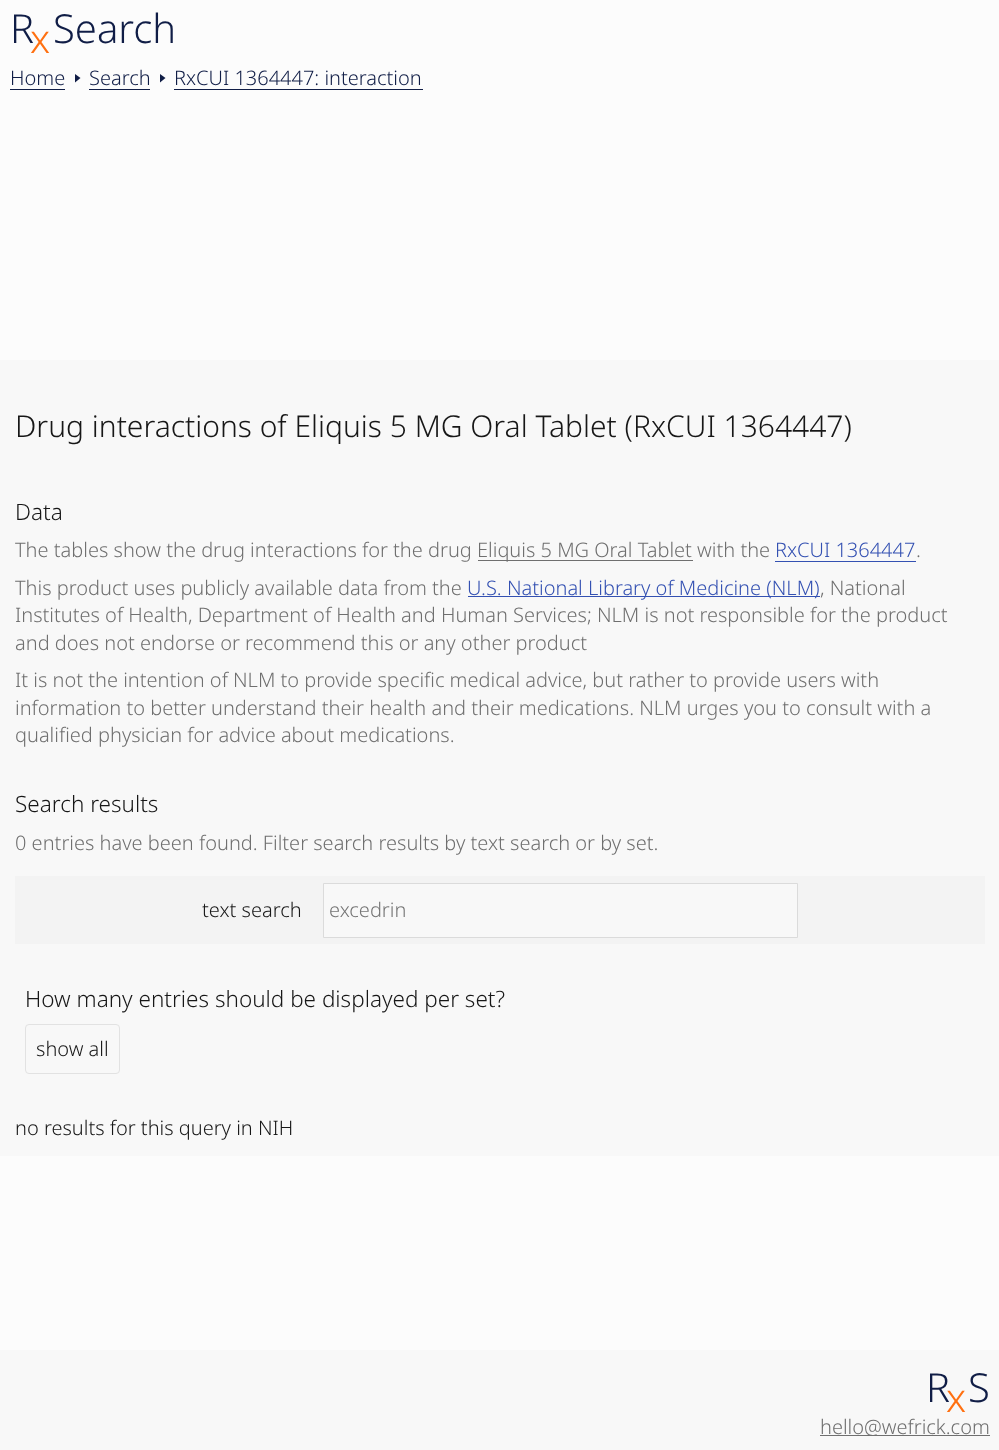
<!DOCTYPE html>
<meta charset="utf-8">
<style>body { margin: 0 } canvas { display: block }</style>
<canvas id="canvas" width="999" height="1450"></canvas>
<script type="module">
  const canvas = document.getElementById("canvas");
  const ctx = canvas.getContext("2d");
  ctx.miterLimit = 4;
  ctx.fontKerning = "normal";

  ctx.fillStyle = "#fcfcfc";
  ctx.fillRect(0, 0, 999, 1450);
  ctx.font = "300 40px Noto Sans";
  ctx.fillStyle = "#101d46";
  ctx.fillText("R", 10, 43);
  ctx.fillStyle = "#ff7011";
  ctx.fillText("x", 30, 53);
  ctx.fillStyle = "#101d46";
  ctx.fillText("Search", 53, 43);
  ctx.font = "300 20px Noto Sans";
  ctx.fillText("Home", 10, 85);
  ctx.fillRect(10, 89, 55, 1);
  ctx.beginPath();
  ctx.moveTo(75, 82.5);
  ctx.lineTo(75, 74);
  ctx.lineTo(80.5, 78);
  ctx.closePath();
  ctx.fill();
  ctx.fillText("Search", 89, 85);
  ctx.fillRect(89, 89, 61, 1);
  ctx.beginPath();
  ctx.moveTo(160, 82.5);
  ctx.lineTo(160, 74);
  ctx.lineTo(165.5, 78);
  ctx.closePath();
  ctx.fill();
  ctx.fillText("RxCUI 1364447: interaction", 174, 85);
  ctx.fillRect(174, 89, 249, 1);
  ctx.fillStyle = "#f8f8f8";
  ctx.fillRect(0, 360, 999, 796);
  ctx.font = "300 30px Noto Sans";
  ctx.fillStyle = "#171717";
  ctx.fillText("Drug interactions of Eliquis 5 MG Oral Tablet (RxCUI 1364447)", 15, 437);
  ctx.font = "300 22.5px Noto Sans";
  ctx.fillText("Data", 15, 520);
  ctx.font = "300 20px Noto Sans";
  ctx.fillStyle = "#6f6f6f";
  ctx.fillText("The tables show the drug interactions for the drug", 15, 557);
  ctx.fillRect(478, 560, 215, 1);
  ctx.fillText("Eliquis 5 MG Oral Tablet with the", 477, 557);
  ctx.fillStyle = "#3451b2";
  ctx.fillText("RxCUI 1364447", 775, 557);
  ctx.fillRect(775, 561, 141, 1);
  ctx.fillStyle = "#6f6f6f";
  ctx.fillText(".", 916, 557);
  ctx.fillText("This product uses publicly available data from the", 15, 595);
  ctx.fillStyle = "#3451b2";
  ctx.fillRect(468, 596, 352, 1);
  ctx.fillText("U.S. National Library of Medicine (NLM)", 467, 595);
  ctx.fillStyle = "#6f6f6f";
  ctx.fillText(", National", 820, 595);
  ctx.fillText("Institutes of Health, Department of Health and Human Services; NLM is not responsible for the product", 15, 622);
  ctx.fillText("and does not endorse or recommend this or any other product", 15, 650);
  ctx.fillText("It is not the intention of NLM to provide specific medical advice, but rather to provide users with", 15, 687);
  ctx.fillText("information to better understand their health and their medications. NLM urges you to consult with a", 15, 715);
  ctx.fillText("qualified physician for advice about medications.", 15, 742);
  ctx.font = "300 22.5px Noto Sans";
  ctx.fillStyle = "#171717";
  ctx.fillText("Search results", 15, 812);
  ctx.font = "300 20px Noto Sans";
  ctx.fillStyle = "#6f6f6f";
  ctx.fillText("0 entries have been found. Filter search results by text search or by set.", 15, 850);
  ctx.fillStyle = "#f3f3f3";
  ctx.fillRect(15, 876, 970, 68);
  ctx.fillStyle = "#171717";
  ctx.fillText("text search", 202, 917);
  ctx.fillStyle = "#f8f8f8";
  ctx.beginPath();
  ctx.rect(323.5, 883.5, 474, 54);
  ctx.fill();
  ctx.strokeStyle = "#dbdbdb";
  ctx.stroke();
  ctx.fillStyle = "#757575";
  ctx.fillText("excedrin", 329, 917);
  ctx.font = "300 22.5px Noto Sans";
  ctx.fillStyle = "#171717";
  ctx.fillText("How many entries should be displayed per set?", 25, 1007);
  ctx.beginPath();
  ctx.roundRect(25.5, 1024.5, 94, 49, 3.5);
  ctx.strokeStyle = "#e2e2e2";
  ctx.stroke();
  ctx.font = "300 20px Noto Sans";
  ctx.fillText("show all", 36, 1056);
  ctx.fillText("no results for this query in NIH", 15, 1135);
  ctx.fillStyle = "#f8f8f8";
  ctx.fillRect(0, 1350, 999, 100);
  ctx.font = "300 40px Noto Sans";
  ctx.fillStyle = "#101d46";
  ctx.fillText("R", 926, 1402);
  ctx.fillStyle = "#ff7011";
  ctx.fillText("x", 946, 1412);
  ctx.fillStyle = "#101d46";
  ctx.fillText("S", 968, 1402);
  ctx.fillStyle = "#6f6f6f";
  ctx.fillRect(820, 1435, 170, 1);
  ctx.font = "300 20px Noto Sans";
  ctx.fillText("hello@wefrick.com", 820, 1434);
</script>
